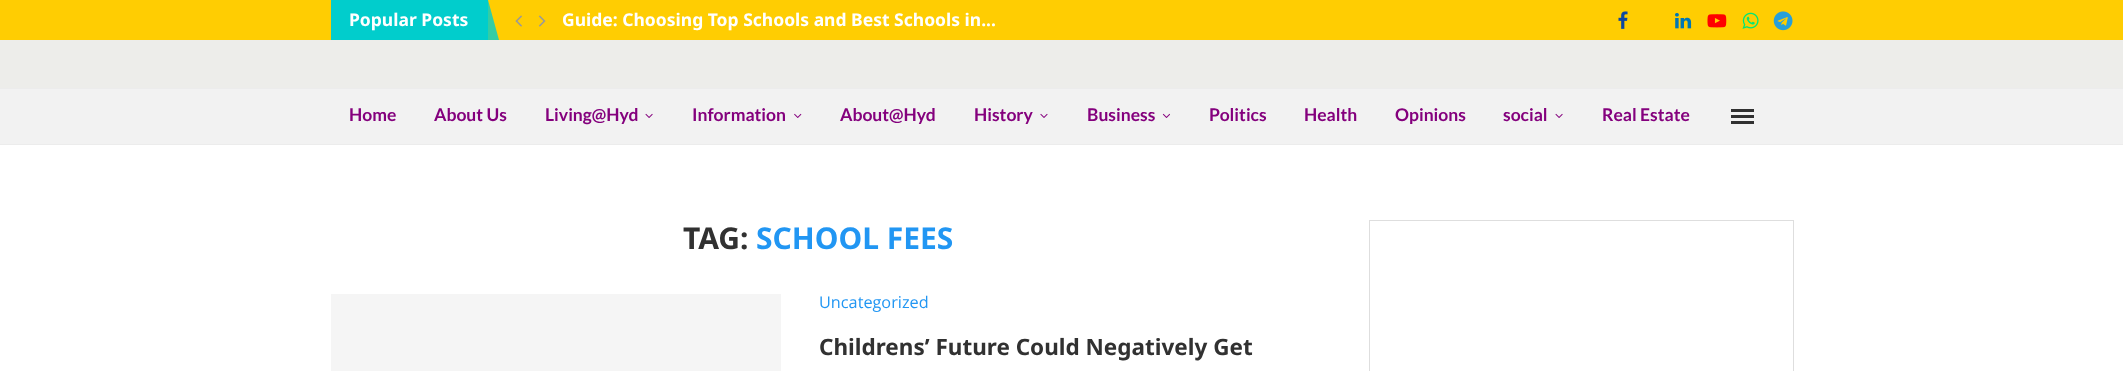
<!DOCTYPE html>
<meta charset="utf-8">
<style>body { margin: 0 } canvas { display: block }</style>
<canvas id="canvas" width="2123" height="371"></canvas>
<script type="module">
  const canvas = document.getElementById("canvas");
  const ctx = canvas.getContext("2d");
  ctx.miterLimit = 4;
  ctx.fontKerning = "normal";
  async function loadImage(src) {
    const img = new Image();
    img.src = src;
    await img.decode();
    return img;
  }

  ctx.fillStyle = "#ffffff";
  ctx.fillRect(0, 0, 2123, 371);
  ctx.fillStyle = "#ffcd02";
  ctx.fillRect(0, 0, 2123, 40);
  ctx.fillStyle = "#01cdcc";
  ctx.fillRect(331, 0, 157, 40);
  ctx.font = "bold 17.5px Noto Sans";
  ctx.fillStyle = "#ffffff";
  ctx.fillText("Popular Posts", 349, 26);
  ctx.fillStyle = "#34cda4";
  ctx.beginPath();
  ctx.moveTo(499, 40);
  ctx.lineTo(488, 40);
  ctx.lineTo(488, 0);
  ctx.closePath();
  ctx.fill();
  ctx.drawImage(await loadImage("img1.png"), 515, 15, 7, 12);
  ctx.drawImage(await loadImage("img2.png"), 538, 15, 8, 12);
  ctx.fillStyle = "#ffffff";
  ctx.fillText("Guide: Choosing Top Schools and Best Schools in...", 562, 26);
  ctx.drawImage(await loadImage("img3.png"), 1618, 11, 10, 18);
  ctx.drawImage(await loadImage("img4.png"), 1675, 13, 17, 16);
  ctx.drawImage(await loadImage("img5.png"), 1707, 14, 20, 14);
  ctx.drawImage(await loadImage("img6.png"), 1742, 12, 17, 17);
  ctx.drawImage(await loadImage("img7.png"), 1773, 11, 20, 20);
  ctx.fillStyle = "#ededea";
  ctx.fillRect(0, 40, 2123, 48);
  ctx.fillStyle = "#f2f2f2";
  ctx.fillRect(0, 89, 2123, 55);
  ctx.fillStyle = "#ececec";
  ctx.fillRect(0, 88, 2123, 1);
  ctx.fillRect(0, 144, 2123, 1);
  ctx.font = "bold 17.5px Lato";
  ctx.fillStyle = "#84007d";
  ctx.fillText("Home", 349, 121);
  ctx.fillText("About Us", 434, 121);
  ctx.fillText("Living@Hyd", 545, 121);
  ctx.drawImage(await loadImage("img8.png"), 645, 113, 8, 5);
  ctx.fillText("Information", 692, 121);
  ctx.drawImage(await loadImage("img9.png"), 794, 113, 8, 5);
  ctx.fillText("About@Hyd", 840, 121);
  ctx.fillText("History", 974, 121);
  ctx.drawImage(await loadImage("img10.png"), 1040, 113, 8, 5);
  ctx.fillText("Business", 1087, 121);
  ctx.drawImage(await loadImage("img11.png"), 1162, 113, 8, 5);
  ctx.fillText("Politics", 1209, 121);
  ctx.fillText("Health", 1304, 121);
  ctx.fillText("Opinions", 1395, 121);
  ctx.fillText("social", 1503, 121);
  ctx.drawImage(await loadImage("img8.png"), 1555, 113, 8, 5);
  ctx.fillText("Real Estate", 1602, 121);
  ctx.fillStyle = "#313131";
  ctx.fillRect(1731, 109, 23, 3);
  ctx.fillRect(1731, 121, 23, 3);
  ctx.fillRect(1731, 115, 23, 3);
  ctx.font = "bold 30px Noto Sans";
  ctx.fillText("TAG:", 683, 249);
  ctx.fillStyle = "#2196f3";
  ctx.fillText("SCHOOL FEES", 756, 249);
  ctx.fillStyle = "#f5f5f5";
  ctx.fillRect(331, 294, 450, 77);
  ctx.font = "16.25px Open Sans";
  ctx.fillStyle = "#2196f3";
  ctx.fillText("Uncategorized", 819, 308);
  ctx.font = "bold 22.5px Noto Sans";
  ctx.fillStyle = "#313131";
  ctx.fillText("Childrens’ Future Could Negatively Get", 819, 355);
  ctx.strokeStyle = "#dedede";
  ctx.strokeRect(1369.5, 220.5, 424, 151);
</script>
